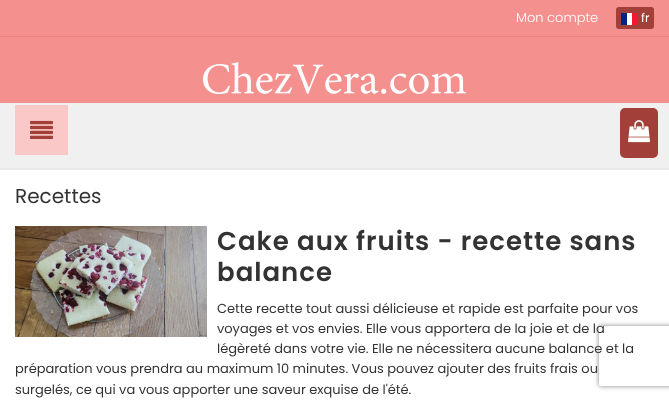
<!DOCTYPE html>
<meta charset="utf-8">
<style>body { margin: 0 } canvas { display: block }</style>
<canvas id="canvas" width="669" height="400"></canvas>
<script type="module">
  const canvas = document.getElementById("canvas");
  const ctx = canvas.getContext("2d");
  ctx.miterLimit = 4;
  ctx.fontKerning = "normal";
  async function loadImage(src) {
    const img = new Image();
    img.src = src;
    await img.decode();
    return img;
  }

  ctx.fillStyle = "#ffffff";
  ctx.fillRect(0, 0, 669, 400);
  ctx.fillStyle = "#f4918e";
  ctx.fillRect(0, 0, 669, 103);
  ctx.fillStyle = "#ec847d";
  ctx.fillRect(0, 36, 669, 1);
  ctx.font = "300 13px Poppins";
  ctx.fillStyle = "#ffffff";
  ctx.fillText("Mon compte", 516, 22);
  ctx.fillStyle = "#a23f38";
  ctx.beginPath();
  ctx.roundRect(616, 7, 38, 22, 3);
  ctx.fill();
  ctx.font = "12px Poppins";
  ctx.fillStyle = "#ffffff";
  ctx.fillText("fr", 641, 22);
  ctx.fillRect(627, 13, 5, 12);
  ctx.fillStyle = "#00267f";
  ctx.fillRect(621, 13, 6, 12);
  ctx.fillStyle = "#f31830";
  ctx.fillRect(632, 13, 5, 12);
  ctx.drawImage(await loadImage("img1.png"), 203, 62, 263, 32);
  ctx.fillStyle = "#f0f0f0";
  ctx.fillRect(0, 103, 669, 65);
  ctx.fillStyle = "#e9e9e9";
  ctx.fillRect(0, 168, 669, 2);
  ctx.fillStyle = "#fac8c7";
  ctx.fillRect(15, 105, 53, 50);
  ctx.drawImage(await loadImage("img2.png"), 30, 120, 23, 19);
  ctx.fillStyle = "#a23f38";
  ctx.beginPath();
  ctx.roundRect(620, 108, 38, 50, 5);
  ctx.fill();
  ctx.drawImage(await loadImage("img3.png"), 628, 120, 22, 23);
  ctx.font = "20px Poppins";
  ctx.fillStyle = "#333333";
  ctx.fillText("Recettes", 15, 203);
  ctx.drawImage(await loadImage("img4.png"), 15, 226, 192, 111);
  ctx.letterSpacing = "1px";
  ctx.font = "600 26px Poppins";
  ctx.fillText("Cake aux fruits - recette sans", 217, 250);
  ctx.fillText("balance", 217, 281);
  ctx.letterSpacing = "0px";
  ctx.font = "13px Poppins";
  ctx.fillText("Cette recette tout aussi délicieuse et rapide est parfaite pour vos", 217, 313);
  ctx.fillText("voyages et vos envies. Elle vous apportera de la joie et de la", 217, 333);
  ctx.fillText("légèreté dans votre vie. Elle ne nécessitera aucune balance et la", 217, 353);
  ctx.fillText("préparation vous prendra au maximum 10 minutes. Vous pouvez ajouter des fruits frais ou", 15, 373);
  ctx.fillText("surgelés, ce qui va vous apporter une saveur exquise de l'été.", 15, 394);
  ctx.save();
  ctx.beginPath();
  ctx.moveTo(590, 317);
  ctx.lineTo(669, 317);
  ctx.lineTo(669, 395);
  ctx.lineTo(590, 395);
  ctx.closePath();
  ctx.moveTo(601, 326);
  ctx.lineTo(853, 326);
  ctx.bezierCurveTo(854, 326, 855, 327, 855, 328);
  ctx.lineTo(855, 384);
  ctx.bezierCurveTo(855, 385, 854, 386, 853, 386);
  ctx.lineTo(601, 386);
  ctx.bezierCurveTo(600, 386, 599, 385, 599, 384);
  ctx.lineTo(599, 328);
  ctx.bezierCurveTo(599, 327, 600, 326, 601, 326);
  ctx.closePath();
  ctx.clip("evenodd");
  ctx.fillStyle = "#808080";
  ctx.filter = "blur(2.5px)";
  ctx.beginPath();
  ctx.roundRect(599, 326, 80, 60, 2);
  ctx.fill();
  ctx.filter = "none";
  ctx.restore();
</script>
